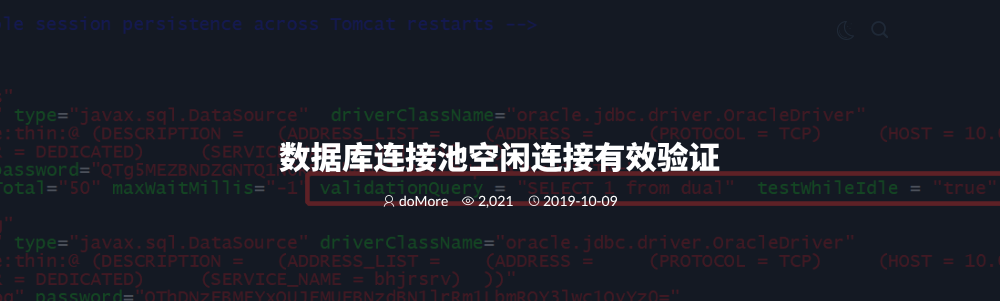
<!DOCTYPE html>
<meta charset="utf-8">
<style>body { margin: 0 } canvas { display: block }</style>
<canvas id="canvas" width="1000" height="301"></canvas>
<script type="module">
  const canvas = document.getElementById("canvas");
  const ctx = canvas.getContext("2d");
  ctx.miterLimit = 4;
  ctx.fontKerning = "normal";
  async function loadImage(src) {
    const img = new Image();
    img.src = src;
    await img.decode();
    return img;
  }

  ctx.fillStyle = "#1d2332";
  ctx.fillRect(0, 0, 1000, 301);
  ctx.drawImage(await loadImage("img3.png"), 0, 0, 1000, 301);
  ctx.drawImage(await loadImage("img1.png"), 837, 21, 17, 19);
  ctx.drawImage(await loadImage("img2.png"), 871, 21, 17, 17);
  ctx.font = "900 31.5px Noto Sans SC";
  ctx.fillStyle = "#ffffff";
  ctx.fillText("数据库连接池空闲连接有效验证", 279, 169);
  ctx.drawImage(await loadImage("img4.png"), 383, 195, 12, 12);
  ctx.font = "14px Lato";
  ctx.fillText("doMore", 399, 206);
  ctx.drawImage(await loadImage("img5.png"), 461, 196, 14, 10);
  ctx.fillText("2,021", 478, 206);
  ctx.drawImage(await loadImage("img6.png"), 528, 195, 12, 11);
  ctx.fillText("2019-10-09", 543, 206);
</script>
